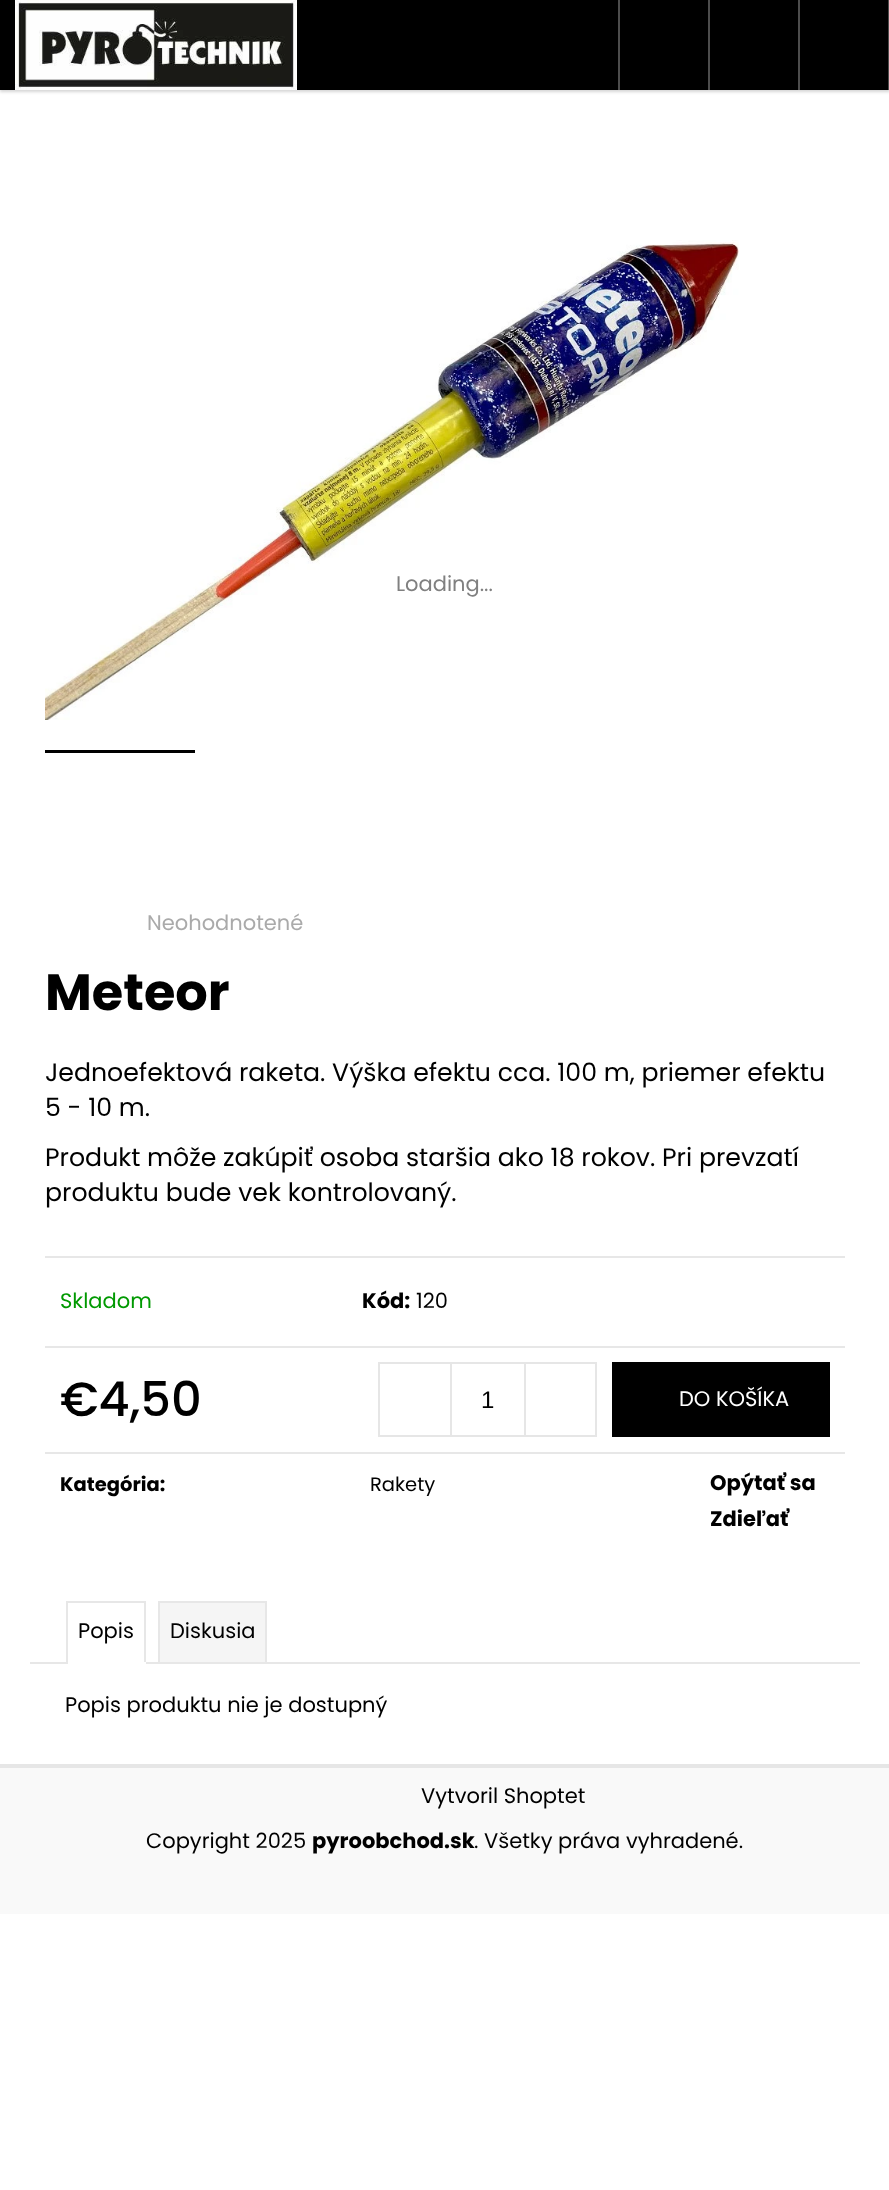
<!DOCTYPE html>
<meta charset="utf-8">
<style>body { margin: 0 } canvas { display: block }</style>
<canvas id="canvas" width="889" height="2190"></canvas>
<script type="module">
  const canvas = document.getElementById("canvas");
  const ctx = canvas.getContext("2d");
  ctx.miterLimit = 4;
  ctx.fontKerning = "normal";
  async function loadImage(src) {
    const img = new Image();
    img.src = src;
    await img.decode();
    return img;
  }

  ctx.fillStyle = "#ffffff";
  ctx.fillRect(0, 0, 889, 2190);
  ctx.fillStyle = "rgba(0, 0, 0, 0.16)";
  ctx.filter = "blur(1.5px)";
  ctx.beginPath();
  ctx.rect(0, 2, 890, 90);
  ctx.fill();
  ctx.filter = "none";
  ctx.fillStyle = "#000000";
  ctx.fillRect(0, 0, 888, 90);
  ctx.drawImage(await loadImage("img1.png"), 15, 0, 282, 90);
  ctx.fillStyle = "#4d4d4d";
  ctx.fillRect(888, 0, 1, 90);
  ctx.fillRect(618, 0, 2, 90);
  ctx.fillRect(708, 0, 2, 90);
  ctx.fillRect(798, 0, 2, 90);
  ctx.drawImage(await loadImage("img2.png"), 45, 240, 694, 480);
  ctx.font = "21px Poppins";
  ctx.fillStyle = "#808080";
  ctx.fillText("Loading...", 396, 591);
  ctx.fillStyle = "#000000";
  ctx.fillRect(45, 750, 150, 3);
  ctx.fillStyle = "#aaaaaa";
  ctx.fillText("Neohodnotené", 147, 930);
  ctx.font = "bold 51px Poppins";
  ctx.fillStyle = "#000000";
  ctx.fillText("Meteor", 45, 1010);
  ctx.font = "25.2px Poppins";
  ctx.fillText("Jednoefektová raketa. Výška efektu cca. 100 m, priemer efektu", 45, 1081);
  ctx.fillText("5 - 10 m.", 45, 1116);
  ctx.fillText("Produkt môže zakúpiť osoba staršia ako 18 rokov. Pri prevzatí", 45, 1166);
  ctx.fillText("produktu bude vek kontrolovaný.", 45, 1201);
  ctx.fillStyle = "#e7e7e7";
  ctx.fillRect(45, 1256, 800, 2);
  ctx.fillRect(45, 1346, 800, 2);
  ctx.font = "21px Poppins";
  ctx.fillStyle = "#009901";
  ctx.fillText("Skladom", 60, 1308);
  ctx.font = "bold 21px Poppins";
  ctx.fillStyle = "#000000";
  ctx.fillText("Kód:", 362, 1308);
  ctx.font = "21px Poppins";
  ctx.fillText("120", 416, 1308);
  ctx.fillStyle = "#e7e7e7";
  ctx.fillRect(45, 1452, 800, 2);
  ctx.font = "500 48px Poppins";
  ctx.fillStyle = "#000000";
  ctx.fillText("€4,50", 60, 1416);
  ctx.strokeStyle = "#e6e6e6";
  ctx.lineWidth = 2;
  ctx.strokeRect(379, 1363, 217, 73);
  ctx.fillStyle = "#e6e6e6";
  ctx.fillRect(450, 1364, 2, 72);
  ctx.font = "24px Liberation Sans";
  ctx.fillStyle = "#000000";
  ctx.fillText("1", 481, 1408);
  ctx.fillStyle = "#e6e6e6";
  ctx.fillRect(524, 1364, 2, 72);
  ctx.fillStyle = "#000000";
  ctx.fillRect(612, 1362, 218, 75);
  ctx.font = "21px Poppins";
  ctx.fillStyle = "#ffffff";
  ctx.fillText("DO KOŠÍKA", 679, 1406);
  ctx.font = "bold 19.5px Poppins";
  ctx.fillStyle = "#000000";
  ctx.fillText("Kategória:", 60, 1491);
  ctx.font = "19.5px Poppins";
  ctx.fillText("Rakety", 370, 1491);
  ctx.font = "bold 21px Poppins";
  ctx.fillText("Opýtať sa", 710, 1490);
  ctx.fillText("Zdieľať", 710, 1526);
  ctx.fillStyle = "#e7e7e7";
  ctx.fillRect(30, 1662, 830, 2);
  ctx.fillRect(66, 1601, 80, 2);
  ctx.fillRect(144, 1601, 2, 63);
  ctx.fillStyle = "#ffffff";
  ctx.fillRect(66, 1662, 80, 2);
  ctx.fillStyle = "#e7e7e7";
  ctx.fillRect(66, 1601, 2, 63);
  ctx.font = "21px Poppins";
  ctx.fillStyle = "#000000";
  ctx.fillText("Popis", 78, 1638);
  ctx.fillStyle = "#f5f5f5";
  ctx.beginPath();
  ctx.rect(159, 1602, 107, 61);
  ctx.fill();
  ctx.strokeStyle = "#e7e7e7";
  ctx.stroke();
  ctx.fillStyle = "#000000";
  ctx.fillText("Diskusia", 170, 1638);
  ctx.fillText("Popis produktu nie je dostupný", 65, 1712);
  ctx.fillStyle = "#f9f9f9";
  ctx.fillRect(0, 1768, 889, 146);
  ctx.fillStyle = "#e6e6e6";
  ctx.fillRect(0, 1764, 889, 4);
  ctx.fillStyle = "#000000";
  ctx.fillText("Vytvoril Shoptet", 421, 1803);
  ctx.fillText("Copyright 2025", 146, 1848);
  ctx.font = "bold 21px Poppins";
  ctx.fillText("pyroobchod.sk", 312, 1848);
  ctx.font = "21px Poppins";
  ctx.fillText(". Všetky práva vyhradené.", 474, 1848);
</script>
